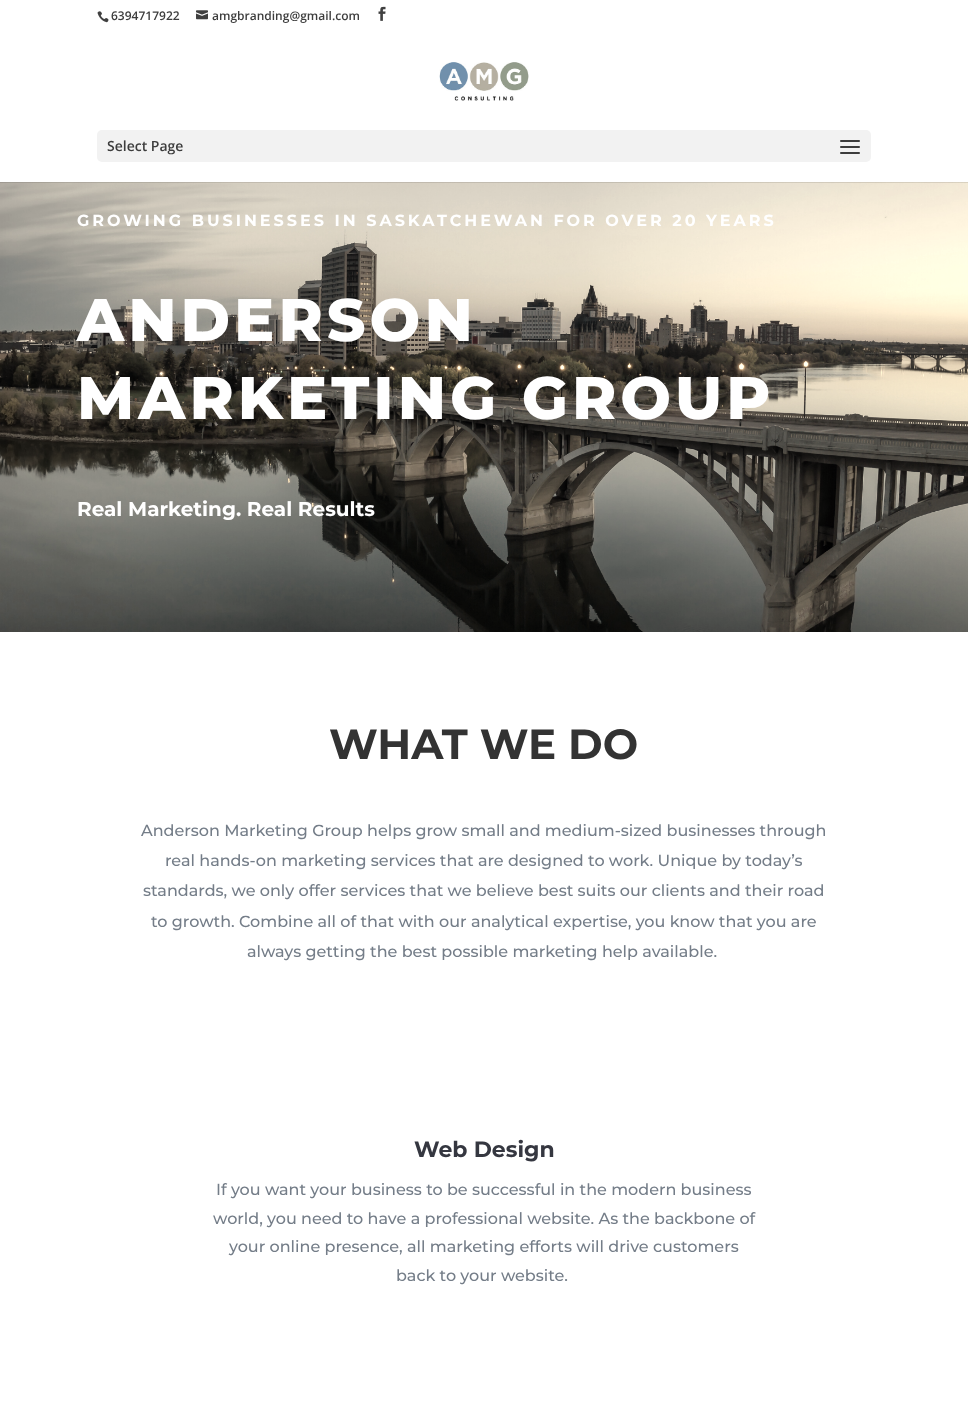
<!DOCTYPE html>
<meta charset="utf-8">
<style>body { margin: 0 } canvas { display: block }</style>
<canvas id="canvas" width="968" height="1428"></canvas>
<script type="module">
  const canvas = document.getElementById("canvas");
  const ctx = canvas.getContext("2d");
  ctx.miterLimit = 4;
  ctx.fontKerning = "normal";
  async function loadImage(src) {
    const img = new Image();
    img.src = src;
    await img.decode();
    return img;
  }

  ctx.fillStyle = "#ffffff";
  ctx.fillRect(0, 0, 968, 1428);
  ctx.drawImage(await loadImage("img1.png"), 97, 11, 12, 12);
  ctx.font = "600 12px Open Sans";
  ctx.fillStyle = "#3d3d3d";
  ctx.fillText("6394717922", 111, 20);
  ctx.drawImage(await loadImage("img2.png"), 196, 10, 12, 10);
  ctx.fillText("amgbranding@gmail.com", 212, 20);
  ctx.drawImage(await loadImage("img3.png"), 378, 6, 8, 15);
  ctx.drawImage(await loadImage("img6.png"), 0, 182, 968, 450);
  ctx.fillStyle = "rgba(0, 0, 0, 0.1)";
  ctx.fillRect(0, 182, 968, 1);
  ctx.drawImage(await loadImage("img4.png"), 439, 62, 90, 39);
  ctx.fillStyle = "#f2f2f2";
  ctx.beginPath();
  ctx.roundRect(97, 130, 774, 32, 5);
  ctx.fill();
  ctx.font = "600 14px Open Sans";
  ctx.fillStyle = "#3d3d3d";
  ctx.fillText("Select Page", 107, 151);
  ctx.drawImage(await loadImage("img5.png"), 840, 140, 20, 14);
  ctx.letterSpacing = "3px";
  ctx.font = "bold 16px Montserrat";
  ctx.fillStyle = "#ffffff";
  ctx.fillText("GROWING BUSINESSES IN SASKATCHEWAN FOR OVER 20 YEARS", 77, 226);
  ctx.letterSpacing = "4px";
  ctx.font = "800 60px Montserrat";
  ctx.fillText("ANDERSON", 77, 341);
  ctx.fillText("MARKETING GROUP", 77, 419);
  ctx.letterSpacing = "0px";
  ctx.font = "bold 20px Montserrat";
  ctx.fillText("Real Marketing. Real Results", 77, 516);
  ctx.font = "bold 42px Montserrat";
  ctx.fillStyle = "#333333";
  ctx.fillText("WHAT WE DO", 329, 759);
  ctx.font = "500 16px Montserrat";
  ctx.fillStyle = "#747d88";
  ctx.fillText("Anderson Marketing Group helps grow small and medium-sized businesses through", 141, 836);
  ctx.fillText("real hands-on marketing services that are designed to work. Unique by today’s", 165, 866);
  ctx.fillText("standards, we only offer services that we believe best suits our clients and their road", 143, 896);
  ctx.fillText("to growth. Combine all of that with our analytical expertise, you know that you are", 151, 927);
  ctx.fillText("always getting the best possible marketing help available.", 247, 957);
  ctx.font = "bold 22px Montserrat";
  ctx.fillStyle = "#353740";
  ctx.fillText("Web Design", 414, 1157);
  ctx.font = "500 16px Montserrat";
  ctx.fillStyle = "#747d88";
  ctx.fillText("If you want your business to be successful in the modern business", 216, 1195);
  ctx.fillText("world, you need to have a professional website. As the backbone of", 213, 1224);
  ctx.fillText("your online presence, all marketing efforts will drive customers", 229, 1252);
  ctx.fillText("back to your website.", 396, 1281);
</script>
